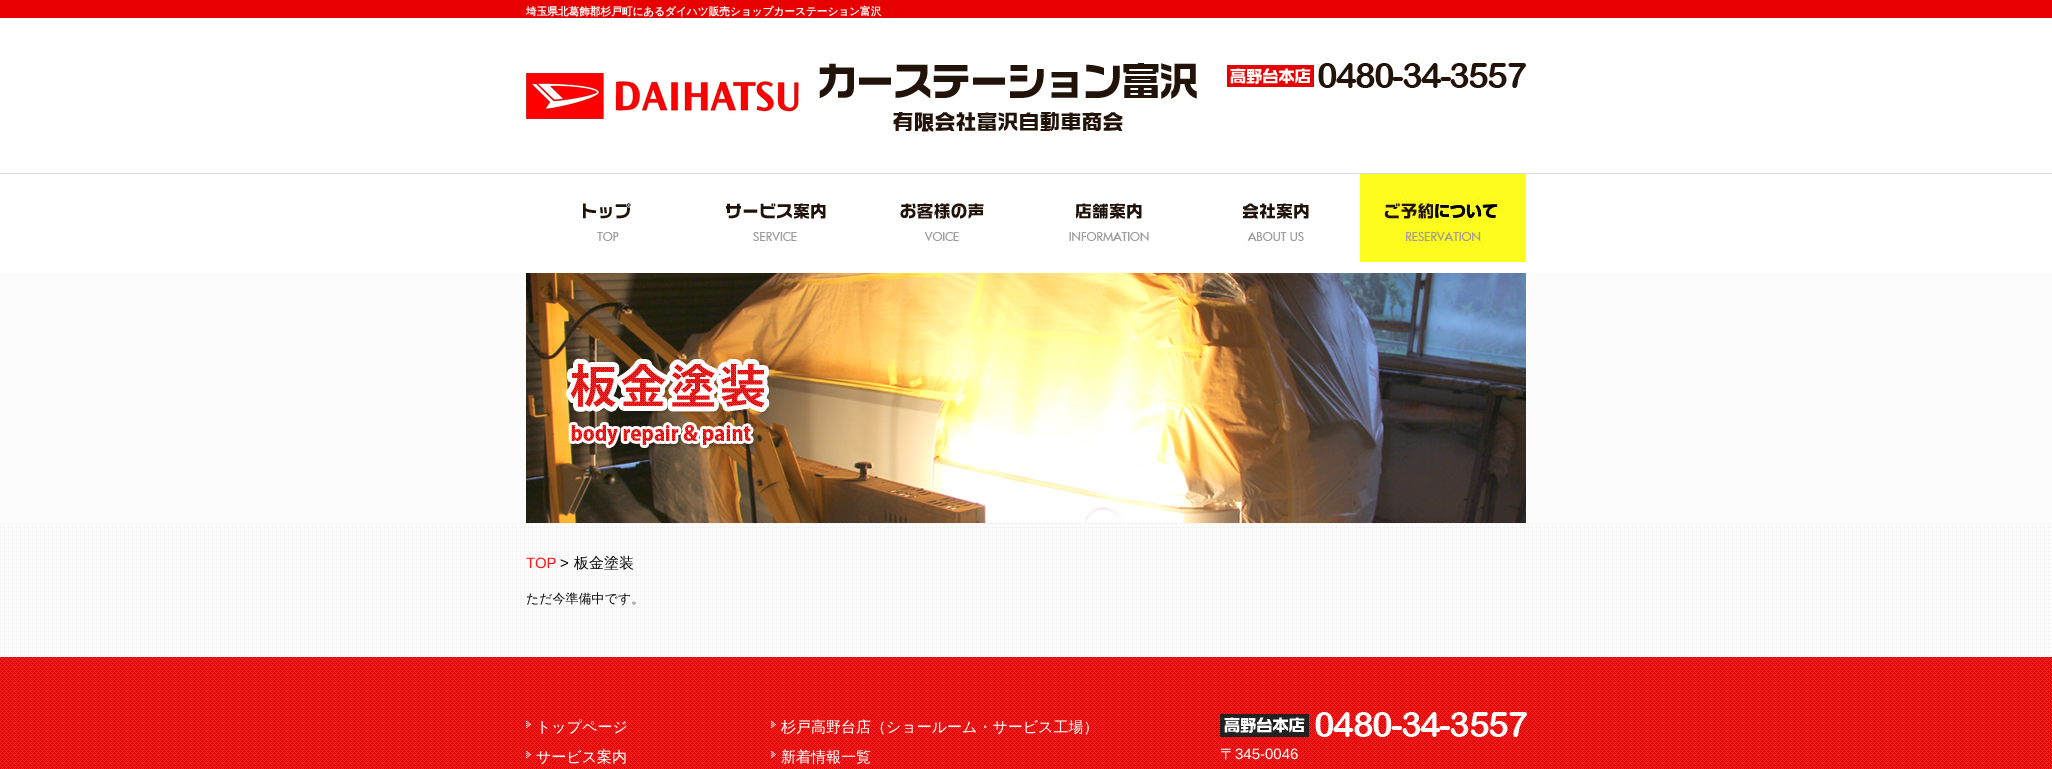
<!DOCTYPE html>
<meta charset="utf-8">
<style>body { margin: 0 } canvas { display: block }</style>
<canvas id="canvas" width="2052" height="769"></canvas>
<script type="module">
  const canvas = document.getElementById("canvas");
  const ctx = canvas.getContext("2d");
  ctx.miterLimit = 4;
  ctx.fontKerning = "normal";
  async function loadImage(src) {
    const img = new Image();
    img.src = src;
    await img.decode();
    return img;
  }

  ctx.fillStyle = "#ffffff";
  ctx.fillRect(0, 0, 2052, 769);
  ctx.fillStyle = "#e70000";
  ctx.fillRect(0, 0, 2052, 18);
  ctx.font = "bold 10.65px WenQuanYi Zen Hei";
  ctx.fillStyle = "#ffffff";
  ctx.fillText("埼玉県北葛飾郡杉戸町にあるダイハツ販売ショップカーステーション富沢", 526, 15);
  ctx.drawImage(await loadImage("img1.png"), 526, 73, 273, 46);
  ctx.drawImage(await loadImage("img2.png"), 819, 63, 378, 69);
  ctx.drawImage(await loadImage("img3.png"), 1227, 63, 299, 28);
  ctx.fillStyle = "#dbdbdb";
  ctx.fillRect(0, 173, 2052, 1);
  ctx.drawImage(await loadImage("img4.png"), 583, 203, 48, 38);
  ctx.drawImage(await loadImage("img5.png"), 723, 203, 103, 38);
  ctx.drawImage(await loadImage("img6.png"), 900, 203, 84, 38);
  ctx.drawImage(await loadImage("img7.png"), 1069, 203, 80, 38);
  ctx.drawImage(await loadImage("img8.png"), 1243, 203, 66, 38);
  ctx.drawImage(await loadImage("img9.png"), 1360, 174, 166, 88);
  ctx.fillStyle = "#fcfcfc";
  ctx.fillRect(0, 273, 2052, 250);
  ctx.drawImage(await loadImage("img10.png"), 526, 273, 1000, 250);
  ctx.drawImage(await loadImage("img11.png"), 0, 523, 2052, 134);
  ctx.font = "15px Liberation Sans";
  ctx.fillStyle = "#ff1414";
  ctx.fillText("TOP", 526, 568);
  ctx.fillStyle = "#000000";
  ctx.fillText(">", 560, 568);
  ctx.font = "500 15px WenQuanYi Zen Hei";
  ctx.fillText("板金塗装", 574, 568);
  ctx.font = "500 13px WenQuanYi Zen Hei";
  ctx.fillText("ただ今準備中です。", 526, 603);
  ctx.drawImage(await loadImage("img12.png"), 0, 657, 2052, 112);
  ctx.drawImage(await loadImage("img13.png"), 526, 721, 5, 7);
  ctx.font = "500 15px WenQuanYi Zen Hei";
  ctx.fillStyle = "#ffffff";
  ctx.fillText("トップページ", 536, 732);
  ctx.drawImage(await loadImage("img14.png"), 526, 751, 5, 7);
  ctx.fillText("サービス案内", 536, 762);
  ctx.drawImage(await loadImage("img15.png"), 771, 721, 5, 7);
  ctx.fillText("杉戸高野台店（ショールーム・サービス工場）", 781, 732);
  ctx.drawImage(await loadImage("img16.png"), 771, 751, 5, 7);
  ctx.fillText("新着情報一覧", 781, 762);
  ctx.drawImage(await loadImage("img17.png"), 1220, 712, 307, 25);
  ctx.fillText("〒", 1220, 759);
  ctx.font = "15px Liberation Sans";
  ctx.fillText("345-0046", 1235, 759);
</script>
